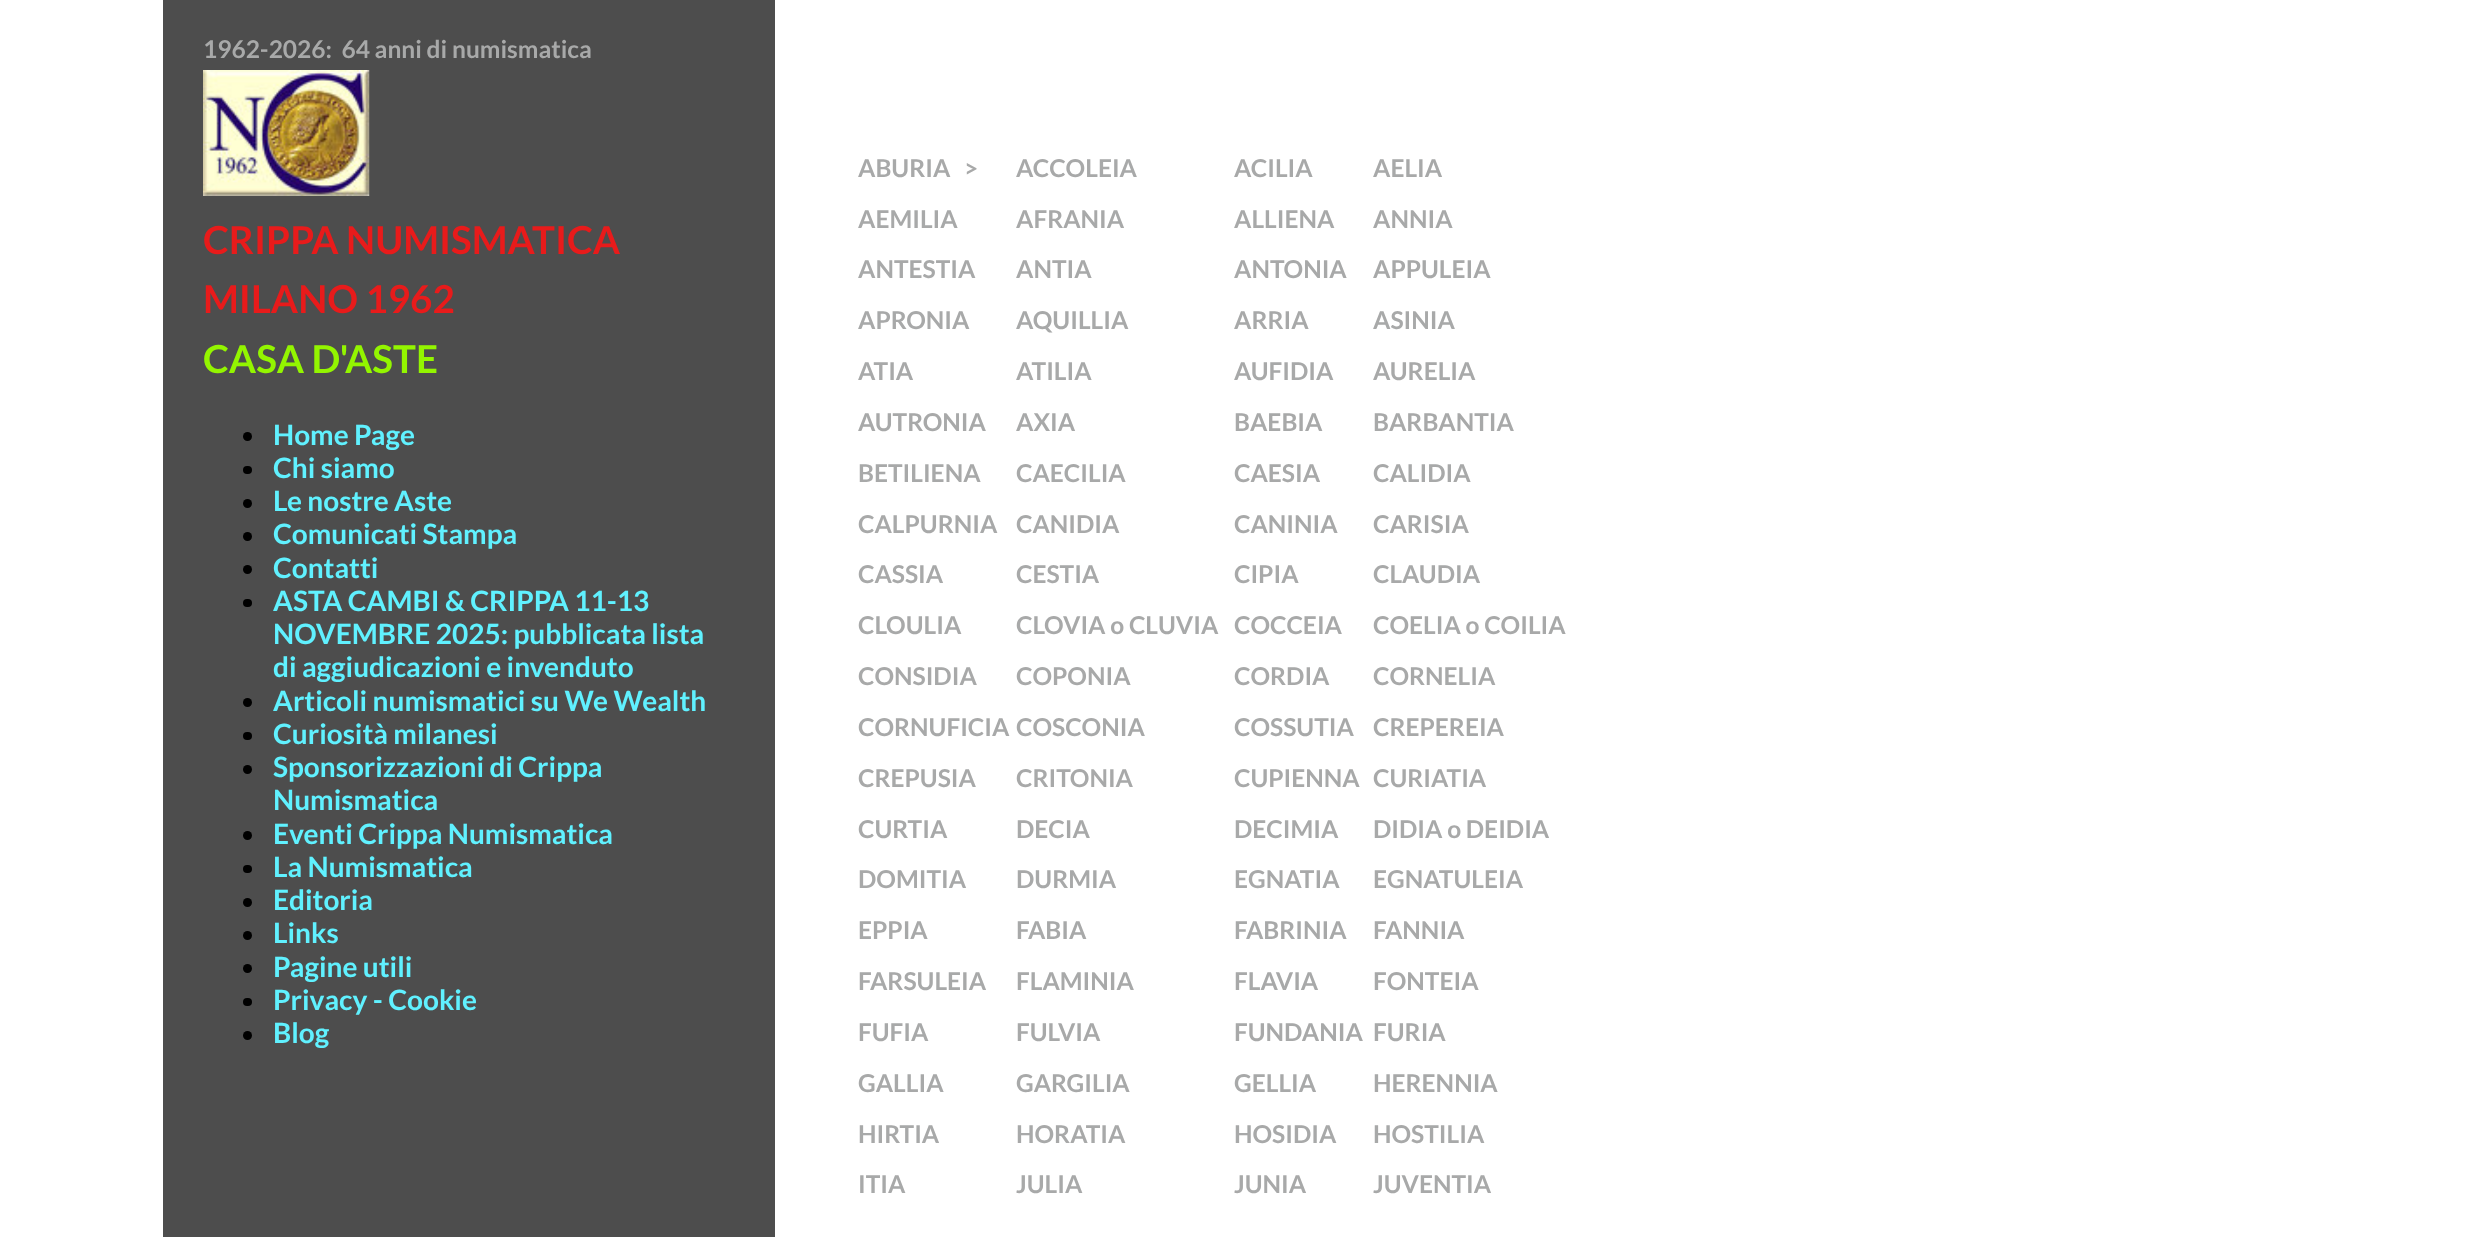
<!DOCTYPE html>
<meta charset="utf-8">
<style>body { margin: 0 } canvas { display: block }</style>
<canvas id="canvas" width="2470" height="1237"></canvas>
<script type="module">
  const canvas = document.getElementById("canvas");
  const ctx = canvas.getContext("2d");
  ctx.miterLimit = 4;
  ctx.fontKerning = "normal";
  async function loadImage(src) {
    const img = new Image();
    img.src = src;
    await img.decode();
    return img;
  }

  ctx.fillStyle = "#ffffff";
  ctx.fillRect(0, 0, 2470, 1237);
  ctx.fillStyle = "#4d4d4d";
  ctx.fillRect(163, 0, 612, 1237);
  ctx.font = "bold 24.5px Lato";
  ctx.fillStyle = "#a8a9a9";
  ctx.fillText("1962-2026:  64 anni di numismatica", 203, 58);
  ctx.drawImage(await loadImage("img1.png"), 203, 70, 167, 126);
  ctx.font = "bold 38.5px Lato";
  ctx.fillStyle = "#e81b1b";
  ctx.fillText("CRIPPA NUMISMATICA", 203, 254);
  ctx.fillText("MILANO 1962", 203, 313);
  ctx.fillStyle = "#93f500";
  ctx.fillText("CASA D'ASTE", 203, 373);
  ctx.font = "bold 24.5px Lato";
  ctx.fillStyle = "#a8a9a9";
  ctx.fillText("ABURIA", 858, 177);
  ctx.fillText(">", 964, 177);
  ctx.fillText("ACCOLEIA", 1016, 177);
  ctx.fillText("ACILIA", 1234, 177);
  ctx.fillText("AELIA", 1373, 177);
  ctx.fillText("AEMILIA", 858, 228);
  ctx.fillText("AFRANIA", 1016, 228);
  ctx.fillText("ALLIENA", 1234, 228);
  ctx.fillText("ANNIA", 1373, 228);
  ctx.fillText("ANTESTIA", 858, 278);
  ctx.fillText("ANTIA", 1016, 278);
  ctx.fillText("ANTONIA", 1234, 278);
  ctx.fillText("APPULEIA", 1373, 278);
  ctx.fillText("APRONIA", 858, 329);
  ctx.fillText("AQUILLIA", 1016, 329);
  ctx.fillText("ARRIA", 1234, 329);
  ctx.fillText("ASINIA", 1373, 329);
  ctx.fillText("ATIA", 858, 380);
  ctx.fillText("ATILIA", 1016, 380);
  ctx.fillText("AUFIDIA", 1234, 380);
  ctx.fillText("AURELIA", 1373, 380);
  ctx.fillText("AUTRONIA", 858, 431);
  ctx.fillText("AXIA", 1016, 431);
  ctx.fillText("BAEBIA", 1234, 431);
  ctx.fillText("BARBANTIA", 1373, 431);
  ctx.fillText("BETILIENA", 858, 482);
  ctx.fillText("CAECILIA", 1016, 482);
  ctx.fillText("CAESIA", 1234, 482);
  ctx.fillText("CALIDIA", 1373, 482);
  ctx.fillText("CALPURNIA", 858, 533);
  ctx.fillText("CANIDIA", 1016, 533);
  ctx.fillText("CANINIA", 1234, 533);
  ctx.fillText("CARISIA", 1373, 533);
  ctx.fillText("CASSIA", 858, 583);
  ctx.fillText("CESTIA", 1016, 583);
  ctx.fillText("CIPIA", 1234, 583);
  ctx.fillText("CLAUDIA", 1373, 583);
  ctx.fillText("CLOULIA", 858, 634);
  ctx.fillText("CLOVIA o CLUVIA", 1016, 634);
  ctx.fillText("COCCEIA", 1234, 634);
  ctx.fillText("COELIA o COILIA", 1373, 634);
  ctx.fillText("CONSIDIA", 858, 685);
  ctx.fillText("COPONIA", 1016, 685);
  ctx.fillText("CORDIA", 1234, 685);
  ctx.fillText("CORNELIA", 1373, 685);
  ctx.fillText("CORNUFICIA", 858, 736);
  ctx.fillText("COSCONIA", 1016, 736);
  ctx.fillText("COSSUTIA", 1234, 736);
  ctx.fillText("CREPEREIA", 1373, 736);
  ctx.fillText("CREPUSIA", 858, 787);
  ctx.fillText("CRITONIA", 1016, 787);
  ctx.fillText("CUPIENNA", 1234, 787);
  ctx.fillText("CURIATIA", 1373, 787);
  ctx.fillText("CURTIA", 858, 838);
  ctx.fillText("DECIA", 1016, 838);
  ctx.fillText("DECIMIA", 1234, 838);
  ctx.fillText("DIDIA o DEIDIA", 1373, 838);
  ctx.fillText("DOMITIA", 858, 888);
  ctx.fillText("DURMIA", 1016, 888);
  ctx.fillText("EGNATIA", 1234, 888);
  ctx.fillText("EGNATULEIA", 1373, 888);
  ctx.fillText("EPPIA", 858, 939);
  ctx.fillText("FABIA", 1016, 939);
  ctx.fillText("FABRINIA", 1234, 939);
  ctx.fillText("FANNIA", 1373, 939);
  ctx.fillText("FARSULEIA", 858, 990);
  ctx.fillText("FLAMINIA", 1016, 990);
  ctx.fillText("FLAVIA", 1234, 990);
  ctx.fillText("FONTEIA", 1373, 990);
  ctx.fillText("FUFIA", 858, 1041);
  ctx.fillText("FULVIA", 1016, 1041);
  ctx.fillText("FUNDANIA", 1234, 1041);
  ctx.fillText("FURIA", 1373, 1041);
  ctx.fillText("GALLIA", 858, 1092);
  ctx.fillText("GARGILIA", 1016, 1092);
  ctx.fillText("GELLIA", 1234, 1092);
  ctx.fillText("HERENNIA", 1373, 1092);
  ctx.fillText("HIRTIA", 858, 1143);
  ctx.fillText("HORATIA", 1016, 1143);
  ctx.fillText("HOSIDIA", 1234, 1143);
  ctx.fillText("HOSTILIA", 1373, 1143);
  ctx.fillText("ITIA", 858, 1193);
  ctx.fillText("JULIA", 1016, 1193);
  ctx.fillText("JUNIA", 1234, 1193);
  ctx.fillText("JUVENTIA", 1373, 1193);
  ctx.fillStyle = "#000000";
  ctx.beginPath();
  ctx.arc(247.5, 436.5, 4.5, 0, Math.PI * 2);
  ctx.fill();
  ctx.font = "bold 28px Lato";
  ctx.fillStyle = "#60f1ff";
  ctx.fillText("Home Page", 273, 445);
  ctx.fillStyle = "#000000";
  ctx.beginPath();
  ctx.roundRect(243, 466, 9, 8, 4);
  ctx.fill();
  ctx.fillStyle = "#60f1ff";
  ctx.fillText("Chi siamo", 273, 478);
  ctx.fillStyle = "#000000";
  ctx.beginPath();
  ctx.arc(247.5, 503.5, 4.5, 0, Math.PI * 2);
  ctx.fill();
  ctx.fillStyle = "#60f1ff";
  ctx.fillText("Le nostre Aste", 273, 511);
  ctx.fillStyle = "#000000";
  ctx.beginPath();
  ctx.arc(247.5, 536.5, 4.5, 0, Math.PI * 2);
  ctx.fill();
  ctx.fillStyle = "#60f1ff";
  ctx.fillText("Comunicati Stampa", 273, 544);
  ctx.fillStyle = "#000000";
  ctx.beginPath();
  ctx.arc(247.5, 569.5, 4.5, 0, Math.PI * 2);
  ctx.fill();
  ctx.fillStyle = "#60f1ff";
  ctx.fillText("Contatti", 273, 578);
  ctx.fillStyle = "#000000";
  ctx.beginPath();
  ctx.roundRect(243, 599, 9, 8, 4);
  ctx.fill();
  ctx.fillStyle = "#60f1ff";
  ctx.fillText("ASTA CAMBI & CRIPPA 11-13", 273, 611);
  ctx.fillText("NOVEMBRE 2025: pubblicata lista", 273, 644);
  ctx.fillText("di aggiudicazioni e invenduto", 273, 677);
  ctx.fillStyle = "#000000";
  ctx.beginPath();
  ctx.arc(247.5, 702.5, 4.5, 0, Math.PI * 2);
  ctx.fill();
  ctx.fillStyle = "#60f1ff";
  ctx.fillText("Articoli numismatici su We Wealth", 273, 711);
  ctx.fillStyle = "#000000";
  ctx.beginPath();
  ctx.roundRect(243, 732, 9, 8, 4);
  ctx.fill();
  ctx.fillStyle = "#60f1ff";
  ctx.fillText("Curiosità milanesi", 273, 744);
  ctx.fillStyle = "#000000";
  ctx.beginPath();
  ctx.arc(247.5, 769.5, 4.5, 0, Math.PI * 2);
  ctx.fill();
  ctx.fillStyle = "#60f1ff";
  ctx.fillText("Sponsorizzazioni di Crippa", 273, 777);
  ctx.fillText("Numismatica", 273, 810);
  ctx.fillStyle = "#000000";
  ctx.beginPath();
  ctx.arc(247.5, 835.5, 4.5, 0, Math.PI * 2);
  ctx.fill();
  ctx.fillStyle = "#60f1ff";
  ctx.fillText("Eventi Crippa Numismatica", 273, 844);
  ctx.fillStyle = "#000000";
  ctx.beginPath();
  ctx.roundRect(243, 865, 9, 8, 4);
  ctx.fill();
  ctx.fillStyle = "#60f1ff";
  ctx.fillText("La Numismatica", 273, 877);
  ctx.fillStyle = "#000000";
  ctx.beginPath();
  ctx.arc(247.5, 902.5, 4.5, 0, Math.PI * 2);
  ctx.fill();
  ctx.fillStyle = "#60f1ff";
  ctx.fillText("Editoria", 273, 910);
  ctx.fillStyle = "#000000";
  ctx.beginPath();
  ctx.arc(247.5, 935.5, 4.5, 0, Math.PI * 2);
  ctx.fill();
  ctx.fillStyle = "#60f1ff";
  ctx.fillText("Links", 273, 943);
  ctx.fillStyle = "#000000";
  ctx.beginPath();
  ctx.arc(247.5, 968.5, 4.5, 0, Math.PI * 2);
  ctx.fill();
  ctx.fillStyle = "#60f1ff";
  ctx.fillText("Pagine utili", 273, 977);
  ctx.fillStyle = "#000000";
  ctx.beginPath();
  ctx.roundRect(243, 998, 9, 8, 4);
  ctx.fill();
  ctx.fillStyle = "#60f1ff";
  ctx.fillText("Privacy - Cookie", 273, 1010);
  ctx.fillStyle = "#000000";
  ctx.beginPath();
  ctx.arc(247.5, 1035.5, 4.5, 0, Math.PI * 2);
  ctx.fill();
  ctx.fillStyle = "#60f1ff";
  ctx.fillText("Blog", 273, 1043);
</script>
